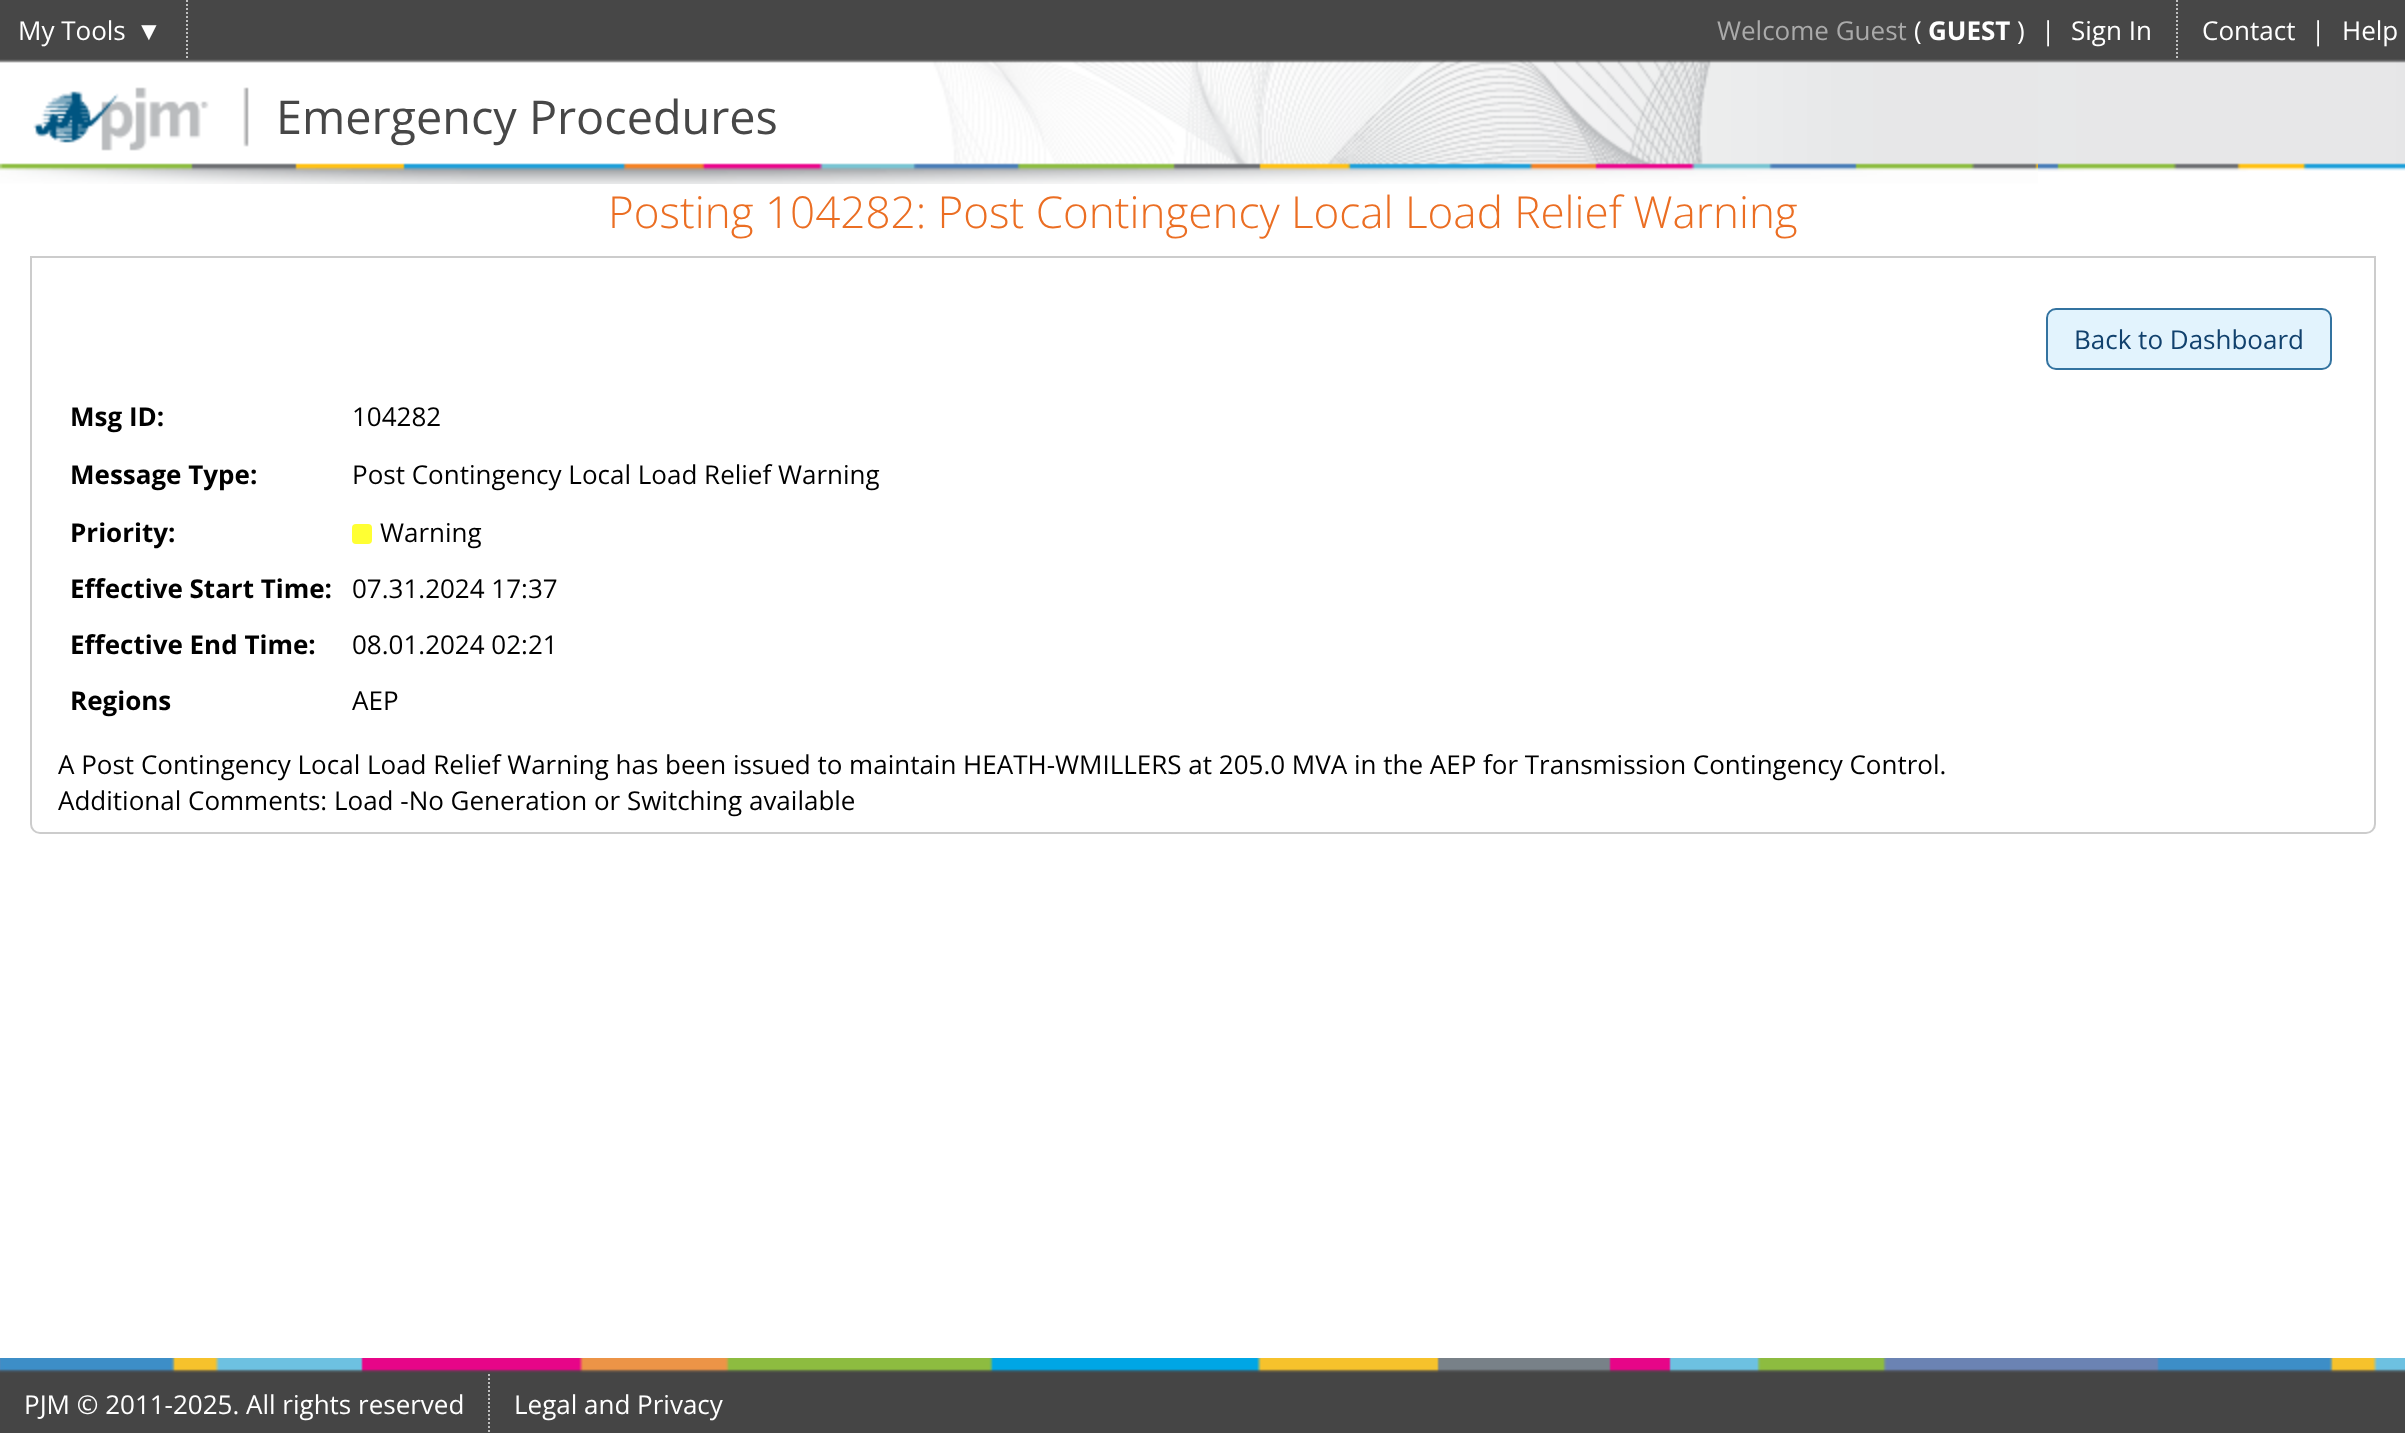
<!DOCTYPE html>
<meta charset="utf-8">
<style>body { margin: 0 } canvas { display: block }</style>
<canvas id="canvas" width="2405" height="1433"></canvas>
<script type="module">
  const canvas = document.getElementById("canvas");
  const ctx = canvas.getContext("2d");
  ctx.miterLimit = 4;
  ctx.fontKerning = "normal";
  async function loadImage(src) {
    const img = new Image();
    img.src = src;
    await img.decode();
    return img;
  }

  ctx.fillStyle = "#ffffff";
  ctx.fillRect(0, 0, 2405, 1433);
  ctx.drawImage(await loadImage("img1.png"), 0, 0, 2405, 172);
  ctx.drawImage(await loadImage("img2.png"), 0, 60, 2038, 124);
  ctx.font = "26px Open Sans";
  ctx.fillText("My Tools", 18, 40);
  ctx.font = "26px Liberation Sans";
  ctx.fillText("▼", 136, 40);
  ctx.beginPath();
  ctx.moveTo(187, 0);
  ctx.lineTo(187, 60);
  ctx.strokeStyle = "#c0c0c0";
  ctx.lineWidth = 2;
  ctx.setLineDash([2, 2]);
  ctx.stroke();
  ctx.font = "26px Open Sans";
  ctx.fillStyle = "#aaaaaa";
  ctx.fillText("Welcome Guest", 1717, 40);
  ctx.fillStyle = "#ffffff";
  ctx.fillText("(", 1914, 40);
  ctx.font = "bold 26px Open Sans";
  ctx.fillText("GUEST", 1928, 40);
  ctx.font = "26px Open Sans";
  ctx.fillText(")", 2017, 40);
  ctx.fillText("|", 2041, 40);
  ctx.fillText("Sign In", 2071, 40);
  ctx.beginPath();
  ctx.moveTo(2177, 0);
  ctx.lineTo(2177, 60);
  ctx.stroke();
  ctx.fillText("Contact", 2202, 40);
  ctx.fillText("|", 2311, 40);
  ctx.fillText("Help", 2342, 40);
  ctx.font = "46.75px Open Sans";
  ctx.fillStyle = "#474747";
  ctx.fillText("Emergency Procedures", 276, 134);
  ctx.font = "300 44px Open Sans";
  ctx.fillStyle = "#eb6e23";
  ctx.fillText("Posting 104282: Post Contingency Local Load Relief Warning", 608, 228);
  ctx.beginPath();
  ctx.roundRect(31, 257, 2344, 576, [0, 0, 9, 9]);
  ctx.strokeStyle = "#cccccc";
  ctx.setLineDash([]);
  ctx.stroke();
  ctx.fillStyle = "#e2f3fd";
  ctx.beginPath();
  ctx.roundRect(2047, 309, 284, 60, 9);
  ctx.fill();
  ctx.strokeStyle = "#3373a0";
  ctx.stroke();
  ctx.font = "26px Open Sans";
  ctx.fillStyle = "#11416d";
  ctx.fillText("Back to Dashboard", 2074, 349);
  ctx.font = "bold 26px Open Sans";
  ctx.fillStyle = "#000000";
  ctx.fillText("Msg ID:", 70, 426);
  ctx.font = "26px Open Sans";
  ctx.fillText("104282", 352, 426);
  ctx.font = "bold 26px Open Sans";
  ctx.fillText("Message Type:", 70, 484);
  ctx.font = "26px Open Sans";
  ctx.fillText("Post Contingency Local Load Relief Warning", 352, 484);
  ctx.font = "bold 26px Open Sans";
  ctx.fillText("Priority:", 70, 542);
  ctx.fillStyle = "#ffff33";
  ctx.beginPath();
  ctx.roundRect(352, 524, 20, 20, 4);
  ctx.fill();
  ctx.font = "26px Open Sans";
  ctx.fillStyle = "#000000";
  ctx.fillText("Warning", 380, 542);
  ctx.font = "bold 26px Open Sans";
  ctx.fillText("Effective Start Time:", 70, 598);
  ctx.font = "26px Open Sans";
  ctx.fillText("07.31.2024 17:37", 352, 598);
  ctx.font = "bold 26px Open Sans";
  ctx.fillText("Effective End Time:", 70, 654);
  ctx.font = "26px Open Sans";
  ctx.fillText("08.01.2024 02:21", 352, 654);
  ctx.font = "bold 26px Open Sans";
  ctx.fillText("Regions", 70, 710);
  ctx.font = "26px Open Sans";
  ctx.fillText("AEP", 352, 710);
  ctx.fillText("A Post Contingency Local Load Relief Warning has been issued to maintain HEATH-WMILLERS at 205.0 MVA in the AEP for Transmission Contingency Control.", 58, 774);
  ctx.fillText("Additional Comments: Load -No Generation or Switching available", 58, 810);
  ctx.drawImage(await loadImage("img3.png"), 0, 1358, 2405, 75);
  ctx.fillStyle = "#ffffff";
  ctx.fillText("PJM © 2011-2025. All rights reserved", 24, 1414);
  ctx.beginPath();
  ctx.moveTo(489, 1374);
  ctx.lineTo(489, 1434);
  ctx.strokeStyle = "#c0c0c0";
  ctx.setLineDash([2, 2]);
  ctx.stroke();
  ctx.fillText("Legal and Privacy", 514, 1414);
</script>
